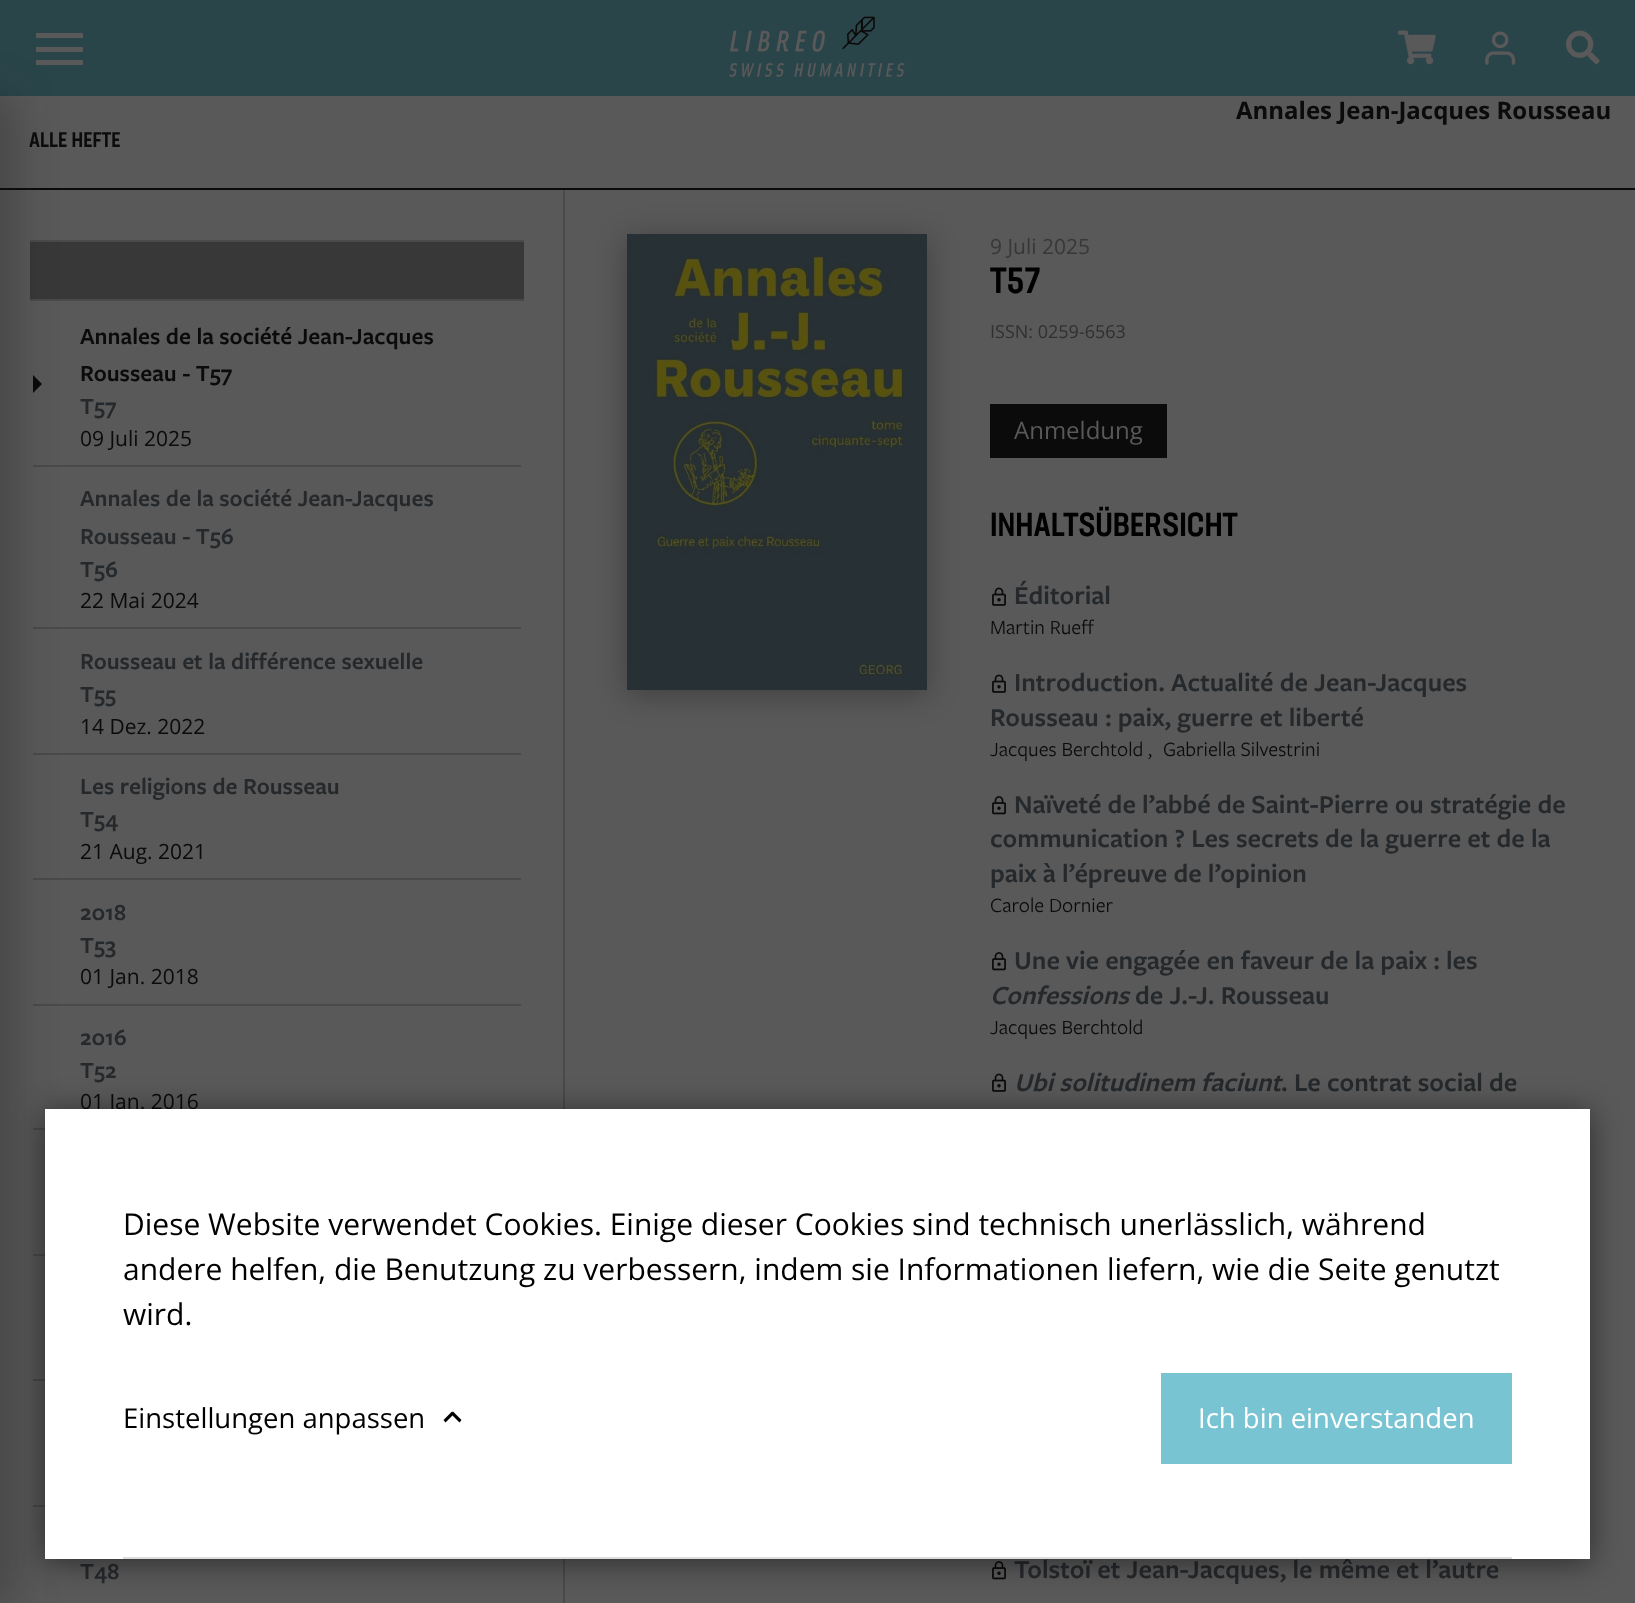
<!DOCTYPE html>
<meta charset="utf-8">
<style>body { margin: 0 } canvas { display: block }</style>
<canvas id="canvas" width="1635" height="1603"></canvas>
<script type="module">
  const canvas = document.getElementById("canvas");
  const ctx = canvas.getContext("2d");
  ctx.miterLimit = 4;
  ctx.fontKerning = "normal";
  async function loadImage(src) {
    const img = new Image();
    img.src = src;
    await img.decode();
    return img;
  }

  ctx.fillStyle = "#595959";
  ctx.fillRect(0, 0, 1635, 1603);
  ctx.fillStyle = "#2a454a";
  ctx.fillRect(0, 0, 1635, 96);
  ctx.fillStyle = "#595959";
  ctx.fillRect(36, 47, 47, 5);
  ctx.fillRect(36, 33, 47, 5);
  ctx.fillRect(36, 60, 47, 5);
  ctx.fillStyle = "#0b0b0b";
  ctx.fillRect(0, 188, 1635, 2);
  ctx.fillStyle = "#383838";
  ctx.fillRect(30, 242, 494, 57);
  ctx.fillStyle = "#4a4a4a";
  ctx.fillRect(30, 240, 494, 2);
  ctx.fillRect(30, 299, 494, 2);
  ctx.fillRect(33, 465, 488, 2);
  ctx.fillStyle = "#090b0a";
  ctx.beginPath();
  ctx.moveTo(33, 393);
  ctx.lineTo(33, 375);
  ctx.lineTo(42, 384);
  ctx.closePath();
  ctx.fill();
  ctx.fillStyle = "#4a4a4a";
  ctx.fillRect(33, 627, 488, 2);
  ctx.fillRect(33, 753, 488, 2);
  ctx.fillRect(33, 878, 488, 2);
  ctx.fillRect(33, 1004, 488, 2);
  ctx.fillRect(33, 1128, 12, 2);
  ctx.fillRect(33, 1254, 12, 2);
  ctx.fillRect(33, 1379, 12, 2);
  ctx.fillRect(33, 1505, 12, 2);
  ctx.fillStyle = "rgba(25, 25, 25, 0.29)";
  ctx.filter = "blur(21px)";
  ctx.beginPath();
  ctx.rect(-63, 96, 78, 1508);
  ctx.fill();
  ctx.filter = "none";
  ctx.drawImage(await loadImage("img1.png"), 729, 16, 176, 61);
  ctx.drawImage(await loadImage("img2.png"), 1398, 30, 38, 35);
  ctx.drawImage(await loadImage("img3.png"), 1485, 31, 31, 34);
  ctx.drawImage(await loadImage("img4.png"), 1566, 30, 34, 35);
  ctx.font = "bold 24px Open Sans";
  ctx.fillStyle = "#0b0b0b";
  ctx.fillText("Annales Jean-Jacques Rousseau", 1236, 119);
  ctx.font = "500 21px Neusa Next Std";
  ctx.fillText("ALLE HEFTE", 29, 147);
  ctx.fillStyle = "#4a4a4a";
  ctx.fillRect(563, 190, 2, 1413);
  ctx.font = "600 24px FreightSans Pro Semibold";
  ctx.fillStyle = "#0b0b0b";
  ctx.fillText("Annales de la société Jean-Jacques", 80, 344);
  ctx.fillText("Rousseau - T57", 80, 381);
  ctx.fillStyle = "#26292c";
  ctx.fillText("T57", 80, 414);
  ctx.font = "21px Open Sans";
  ctx.fillStyle = "#0b0b0b";
  ctx.fillText("09 Juli 2025", 80, 446);
  ctx.font = "600 24px FreightSans Pro Semibold";
  ctx.fillStyle = "#26292c";
  ctx.fillText("Annales de la société Jean-Jacques", 80, 506);
  ctx.fillText("Rousseau - T56", 80, 544);
  ctx.fillText("T56", 80, 577);
  ctx.font = "21px Open Sans";
  ctx.fillStyle = "#0b0b0b";
  ctx.fillText("22 Mai 2024", 80, 608);
  ctx.font = "600 24px FreightSans Pro Semibold";
  ctx.fillStyle = "#26292c";
  ctx.fillText("Rousseau et la différence sexuelle", 80, 669);
  ctx.fillText("T55", 80, 702);
  ctx.font = "21px Open Sans";
  ctx.fillStyle = "#0b0b0b";
  ctx.fillText("14 Dez. 2022", 80, 734);
  ctx.font = "600 24px FreightSans Pro Semibold";
  ctx.fillStyle = "#26292c";
  ctx.fillText("Les religions de Rousseau", 80, 794);
  ctx.fillText("T54", 80, 827);
  ctx.font = "21px Open Sans";
  ctx.fillStyle = "#0b0b0b";
  ctx.fillText("21 Aug. 2021", 80, 859);
  ctx.font = "600 24px FreightSans Pro Semibold";
  ctx.fillStyle = "#26292c";
  ctx.fillText("2018", 80, 920);
  ctx.fillText("T53", 80, 953);
  ctx.font = "21px Open Sans";
  ctx.fillStyle = "#0b0b0b";
  ctx.fillText("01 Jan. 2018", 80, 984);
  ctx.font = "600 24px FreightSans Pro Semibold";
  ctx.fillStyle = "#26292c";
  ctx.fillText("2016", 80, 1045);
  ctx.fillText("T52", 80, 1078);
  ctx.font = "21px Open Sans";
  ctx.fillStyle = "#0b0b0b";
  ctx.fillText("01 Jan. 2016", 80, 1109);
  ctx.font = "600 24px FreightSans Pro Semibold";
  ctx.fillStyle = "#26292c";
  ctx.fillText("T48", 80, 1579);
  ctx.fillStyle = "rgba(0, 0, 0, 0.29)";
  ctx.filter = "blur(15px)";
  ctx.beginPath();
  ctx.rect(627, 239, 300, 456);
  ctx.fill();
  ctx.filter = "none";
  ctx.drawImage(await loadImage("img5.png"), 627, 234, 300, 456);
  ctx.font = "21px Open Sans";
  ctx.fillStyle = "#383838";
  ctx.fillText("9 Juli 2025", 990, 254);
  ctx.font = "500 36px Neusa Next Std";
  ctx.fillStyle = "#000000";
  ctx.fillText("T57", 990, 293);
  ctx.font = "18px Open Sans";
  ctx.fillStyle = "#303030";
  ctx.fillText("ISSN: 0259-6563", 990, 338);
  ctx.fillStyle = "#0b0b0b";
  ctx.fillRect(990, 404, 177, 54);
  ctx.font = "24px Open Sans";
  ctx.fillStyle = "#595959";
  ctx.fillText("Anmeldung", 1014, 439);
  ctx.font = "500 33px Neusa Next Std";
  ctx.fillStyle = "#000000";
  ctx.fillText("INHALTSÜBERSICHT", 990, 536);
  ctx.drawImage(await loadImage("img6.png"), 992, 587, 14, 19);
  ctx.font = "600 27px FreightSans Pro Semibold";
  ctx.fillStyle = "#26292c";
  ctx.fillText("Éditorial", 1014, 604);
  ctx.font = "21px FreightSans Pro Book";
  ctx.fillStyle = "#0b0b0b";
  ctx.fillText("Martin Rueff", 990, 634);
  ctx.drawImage(await loadImage("img6.png"), 992, 674, 14, 19);
  ctx.font = "600 27px FreightSans Pro Semibold";
  ctx.fillStyle = "#26292c";
  ctx.fillText("Introduction. Actualité de Jean-Jacques", 1014, 691);
  ctx.fillText("Rousseau : paix, guerre et liberté", 990, 726);
  ctx.font = "21px FreightSans Pro Book";
  ctx.fillStyle = "#0b0b0b";
  ctx.fillText("Jacques Berchtold", 990, 756);
  ctx.fillStyle = "#000000";
  ctx.fillText(",", 1148, 756);
  ctx.fillStyle = "#0b0b0b";
  ctx.fillText("Gabriella Silvestrini", 1163, 756);
  ctx.drawImage(await loadImage("img7.png"), 992, 796, 14, 19);
  ctx.font = "600 27px FreightSans Pro Semibold";
  ctx.fillStyle = "#26292c";
  ctx.fillText("Naïveté de l’abbé de Saint-Pierre ou stratégie de", 1014, 813);
  ctx.fillText("communication ? Les secrets de la guerre et de la", 990, 847);
  ctx.fillText("paix à l’épreuve de l’opinion", 990, 882);
  ctx.font = "21px FreightSans Pro Book";
  ctx.fillStyle = "#0b0b0b";
  ctx.fillText("Carole Dornier", 990, 912);
  ctx.drawImage(await loadImage("img7.png"), 992, 952, 14, 19);
  ctx.font = "600 27px FreightSans Pro Semibold";
  ctx.fillStyle = "#26292c";
  ctx.fillText("Une vie engagée en faveur de la paix : les", 1014, 969);
  ctx.font = "italic 600 27px FreightSans Pro Semibold";
  ctx.fillText("Confessions", 990, 1004);
  ctx.font = "600 27px FreightSans Pro Semibold";
  ctx.fillText("de J.-J. Rousseau", 1135, 1004);
  ctx.font = "21px FreightSans Pro Book";
  ctx.fillStyle = "#0b0b0b";
  ctx.fillText("Jacques Berchtold", 990, 1034);
  ctx.drawImage(await loadImage("img6.png"), 992, 1073, 14, 19);
  ctx.font = "italic 600 27px FreightSans Pro Semibold";
  ctx.fillStyle = "#26292c";
  ctx.fillText("Ubi solitudinem faciunt", 1014, 1091);
  ctx.font = "600 27px FreightSans Pro Semibold";
  ctx.fillText(". Le contrat social de", 1281, 1091);
  ctx.drawImage(await loadImage("img7.png"), 992, 1561, 14, 19);
  ctx.fillText("Tolstoï et Jean-Jacques, le même et l’autre", 1014, 1578);
  ctx.fillStyle = "rgba(0, 0, 0, 0.5)";
  ctx.filter = "blur(15px)";
  ctx.beginPath();
  ctx.rect(45, 1112, 1545, 450);
  ctx.fill();
  ctx.filter = "none";
  ctx.fillStyle = "#ffffff";
  ctx.fillRect(45, 1109, 1545, 450);
  ctx.fillStyle = "#dddddd";
  ctx.fillRect(123, 1557, 1389, 2);
  ctx.font = "30px Open Sans";
  ctx.fillStyle = "#000000";
  ctx.fillText("Diese Website verwendet Cookies. Einige dieser Cookies sind technisch unerlässlich, während", 123, 1235);
  ctx.fillText("andere helfen, die Benutzung zu verbessern, indem sie Informationen liefern, wie die Seite genutzt", 123, 1280);
  ctx.fillText("wird.", 123, 1325);
  ctx.font = "27.5px Open Sans";
  ctx.fillText("Einstellungen anpassen", 123, 1428);
  ctx.beginPath();
  ctx.moveTo(453, 1411.5);
  ctx.lineTo(461.5, 1420);
  ctx.lineTo(459.5, 1422.5);
  ctx.lineTo(451, 1414);
  ctx.closePath();
  ctx.fill();
  ctx.beginPath();
  ctx.moveTo(443.5, 1420);
  ctx.lineTo(452, 1411.5);
  ctx.lineTo(454, 1414);
  ctx.lineTo(445.5, 1422.5);
  ctx.closePath();
  ctx.fill();
  ctx.fillStyle = "#79c4d2";
  ctx.fillRect(1161, 1373, 351, 91);
  ctx.fillStyle = "#ffffff";
  ctx.fillText("Ich bin einverstanden", 1198, 1428);
</script>
